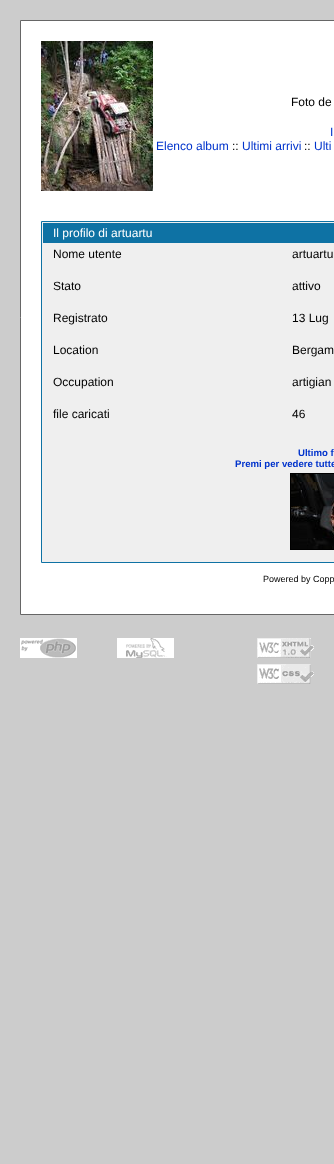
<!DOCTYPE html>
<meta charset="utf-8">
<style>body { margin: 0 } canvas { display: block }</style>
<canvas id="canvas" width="334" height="1164"></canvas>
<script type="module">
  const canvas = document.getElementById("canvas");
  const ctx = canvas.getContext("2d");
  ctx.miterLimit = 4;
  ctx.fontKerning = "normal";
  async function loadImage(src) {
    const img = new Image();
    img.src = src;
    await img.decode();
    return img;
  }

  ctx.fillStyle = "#cccccc";
  ctx.fillRect(0, 0, 334, 1164);
  ctx.fillStyle = "#ffffff";
  ctx.beginPath();
  ctx.rect(20.5, 20.5, 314, 594);
  ctx.fill();
  ctx.strokeStyle = "#666666";
  ctx.stroke();
  ctx.drawImage(await loadImage("img1.png"), 41, 41, 112, 150);
  ctx.font = "12px Liberation Sans";
  ctx.fillStyle = "#000000";
  ctx.fillText("Foto de", 291, 106);
  ctx.fillStyle = "#0033cc";
  ctx.fillText("I", 330, 136);
  ctx.fillText("Elenco album", 156, 150);
  ctx.fillStyle = "#000000";
  ctx.fillText("::", 232, 150);
  ctx.fillStyle = "#0033cc";
  ctx.fillText("Ultimi arrivi", 242, 150);
  ctx.fillStyle = "#000000";
  ctx.fillText("::", 304, 150);
  ctx.fillStyle = "#0033cc";
  ctx.fillText("Ulti", 314, 150);
  ctx.fillStyle = "#efefef";
  ctx.beginPath();
  ctx.rect(41.5, 221.5, 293, 341);
  ctx.fill();
  ctx.strokeStyle = "#0e72a4";
  ctx.stroke();
  ctx.fillStyle = "#0e72a4";
  ctx.fillRect(43, 223, 291, 20);
  ctx.fillStyle = "#ffffff";
  ctx.fillText("Il profilo di artuartu", 53, 237);
  ctx.fillStyle = "#000000";
  ctx.fillText("Nome utente", 53, 258);
  ctx.fillText("artuartu", 292, 258);
  ctx.fillText("Stato", 53, 290);
  ctx.fillText("attivo", 292, 290);
  ctx.fillText("Registrato", 53, 322);
  ctx.fillText("13 Lug", 292, 322);
  ctx.fillText("Location", 53, 354);
  ctx.fillText("Bergam", 292, 354);
  ctx.fillText("Occupation", 53, 386);
  ctx.fillText("artigian", 292, 386);
  ctx.fillText("file caricati", 53, 418);
  ctx.fillText("46", 292, 418);
  ctx.font = "bold 9.6px Liberation Sans";
  ctx.fillStyle = "#0033cc";
  ctx.fillText("Ultimo f", 298, 456);
  ctx.fillText("Premi per vedere tutte", 235, 467);
  ctx.strokeStyle = "#000000";
  ctx.strokeRect(290.5, 473.5, 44, 76);
  ctx.drawImage(await loadImage("img2.png"), 291, 474, 43, 75);
  ctx.font = "9px Liberation Sans";
  ctx.fillStyle = "#000000";
  ctx.fillText("Powered by Copp", 263, 582);
  ctx.drawImage(await loadImage("img3.png"), 20, 638, 57, 20);
  ctx.drawImage(await loadImage("img4.png"), 117, 638, 57, 20);
  ctx.drawImage(await loadImage("img5.png"), 257, 638, 57, 20);
  ctx.drawImage(await loadImage("img6.png"), 257, 664, 57, 20);
</script>
